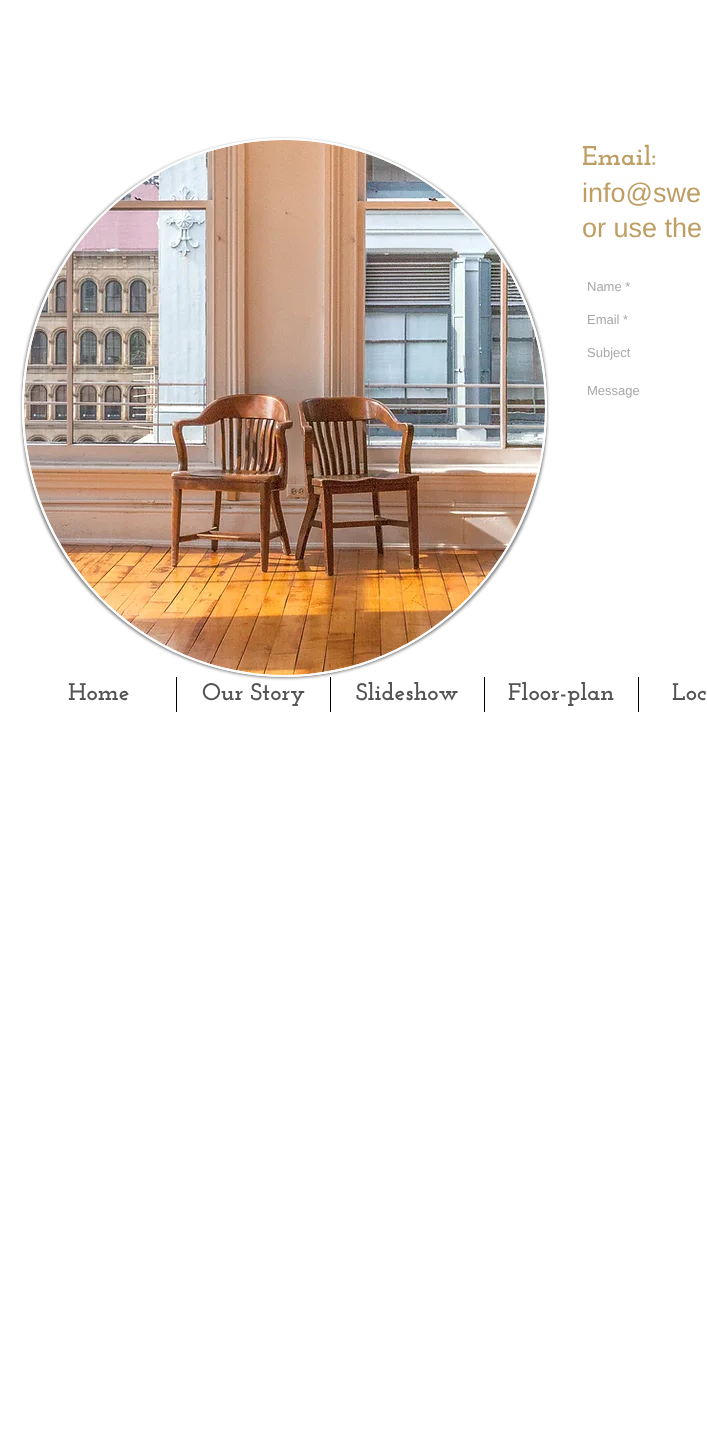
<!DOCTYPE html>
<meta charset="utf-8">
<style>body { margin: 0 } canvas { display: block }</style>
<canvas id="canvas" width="707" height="1437"></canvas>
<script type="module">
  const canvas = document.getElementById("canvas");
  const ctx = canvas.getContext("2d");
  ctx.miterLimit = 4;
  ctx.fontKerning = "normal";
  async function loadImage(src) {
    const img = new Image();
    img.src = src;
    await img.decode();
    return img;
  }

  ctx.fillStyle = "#ffffff";
  ctx.fillRect(0, 0, 707, 1437);
  ctx.fillStyle = "rgba(0, 0, 0, 0.5)";
  ctx.filter = "blur(1.5px)";
  ctx.beginPath();
  ctx.roundRect(22, 139, 525, 539, 262.5);
  ctx.fill();
  ctx.filter = "none";
  ctx.fillStyle = "#fdfefd";
  ctx.beginPath();
  ctx.ellipse(284.5, 407.5, 262.5, 269.5, 0, 0, Math.PI * 2);
  ctx.fill();
  ctx.beginPath();
  ctx.moveTo(284.5, 139);
  ctx.bezierCurveTo(429, 139, 546, 259, 546, 407.5);
  ctx.bezierCurveTo(546, 556, 429, 676, 284.5, 676);
  ctx.bezierCurveTo(140, 676, 23, 556, 23, 407.5);
  ctx.bezierCurveTo(23, 259, 140, 139, 284.5, 139);
  ctx.closePath();
  ctx.strokeStyle = "#fdfefd";
  ctx.lineWidth = 2;
  ctx.stroke();
  ctx.drawImage(await loadImage("img1.png"), 24, 140, 521, 535);
  ctx.font = "bold 27px Josefin Slab";
  ctx.fillStyle = "#bf9e65";
  ctx.fillText("Email:", 582, 165);
  ctx.font = "27px Liberation Sans";
  ctx.fillText("info@swe", 582, 202);
  ctx.fillText("or use the", 582, 237);
  ctx.font = "13px Liberation Sans";
  ctx.fillStyle = "#a9a9a9";
  ctx.fillText("Name *", 587, 291);
  ctx.fillText("Email *", 587, 324);
  ctx.fillText("Subject", 587, 357);
  ctx.fillText("Message", 587, 395);
  ctx.font = "bold 24px Josefin Slab";
  ctx.fillStyle = "#545454";
  ctx.fillText("Home", 68, 700);
  ctx.fillStyle = "#000000";
  ctx.fillRect(176, 677, 1, 35);
  ctx.fillStyle = "#545454";
  ctx.fillText("Our Story", 202, 700);
  ctx.fillStyle = "#000000";
  ctx.fillRect(330, 677, 1, 35);
  ctx.fillStyle = "#545454";
  ctx.fillText("Slideshow", 356, 700);
  ctx.fillStyle = "#000000";
  ctx.fillRect(484, 677, 1, 35);
  ctx.fillStyle = "#545454";
  ctx.fillText("Floor-plan", 508, 700);
  ctx.fillStyle = "#000000";
  ctx.fillRect(638, 677, 1, 35);
  ctx.fillStyle = "#545454";
  ctx.fillText("Loc", 672, 700);
</script>
